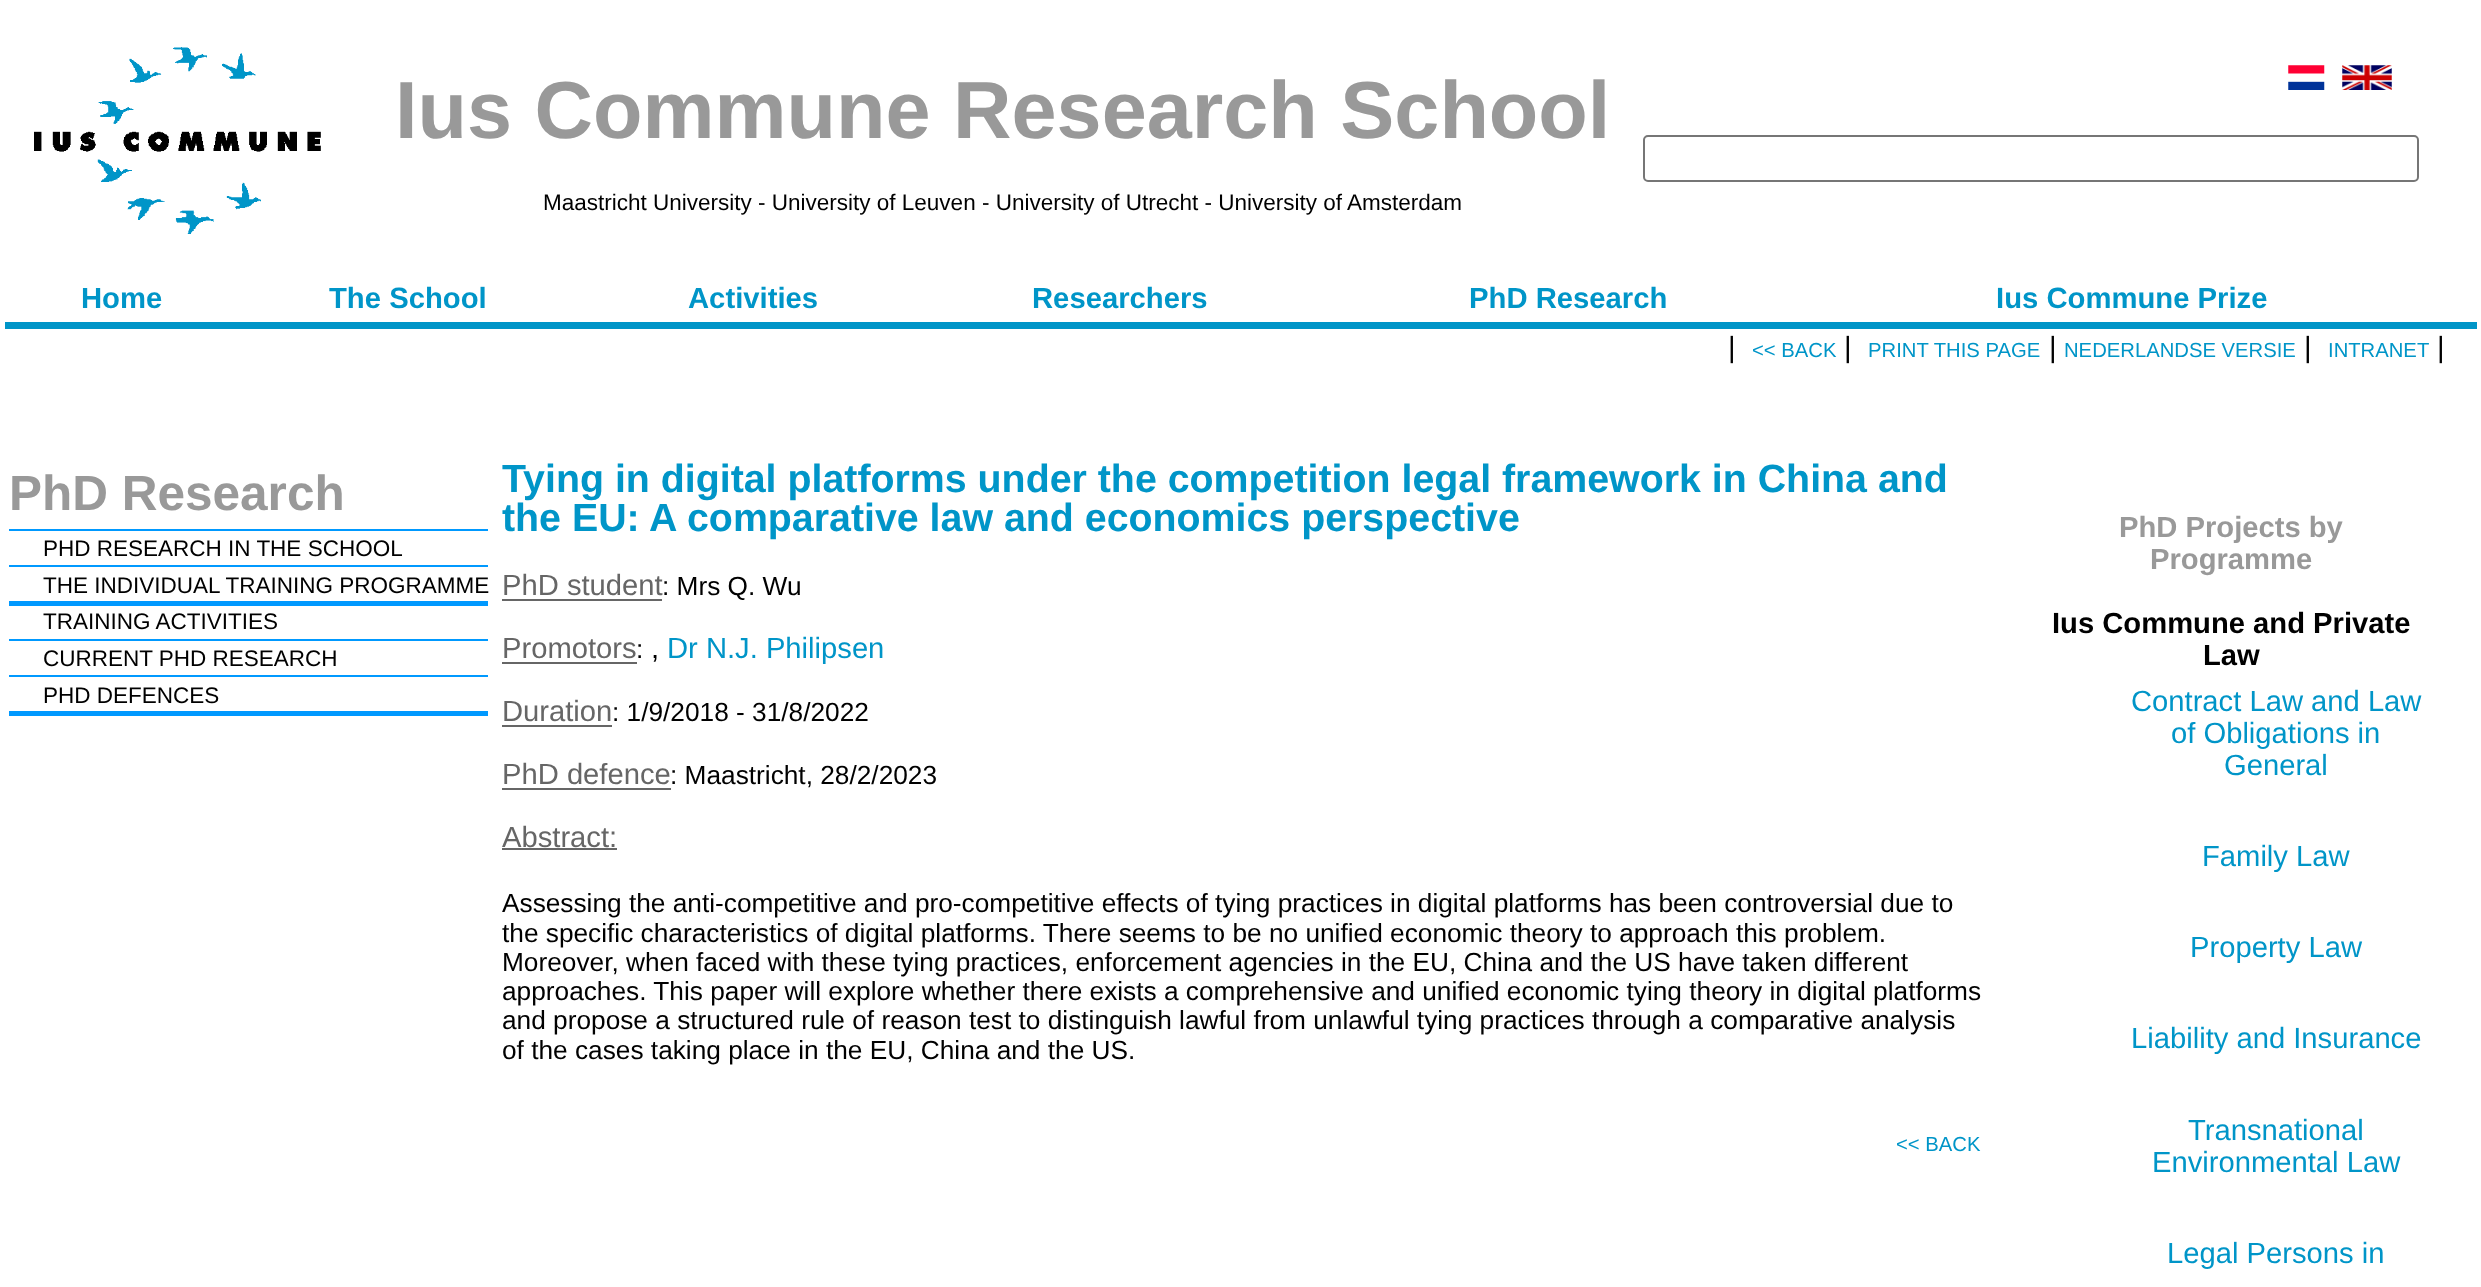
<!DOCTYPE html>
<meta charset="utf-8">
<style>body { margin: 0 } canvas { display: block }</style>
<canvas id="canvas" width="2481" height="1287"></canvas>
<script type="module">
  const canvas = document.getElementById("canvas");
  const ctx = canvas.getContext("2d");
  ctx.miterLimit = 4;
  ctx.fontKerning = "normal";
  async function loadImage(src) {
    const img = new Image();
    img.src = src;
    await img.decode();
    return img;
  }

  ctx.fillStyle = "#ffffff";
  ctx.fillRect(0, 0, 2481, 1287);
  ctx.drawImage(await loadImage("img1.png"), 34, 47, 287, 187);
  ctx.font = "bold 81px Liberation Sans";
  ctx.fillStyle = "#999999";
  ctx.fillText("Ius Commune Research School", 395, 138);
  ctx.font = "22.5px Liberation Sans";
  ctx.fillStyle = "#000000";
  ctx.fillText("Maastricht University - University of Leuven - University of Utrecht - University of Amsterdam", 543, 210);
  ctx.drawImage(await loadImage("img2.png"), 2288, 65, 37, 25);
  ctx.drawImage(await loadImage("img3.png"), 2342, 65, 50, 25);
  ctx.beginPath();
  ctx.roundRect(1644, 136, 774, 45, 4);
  ctx.strokeStyle = "#767676";
  ctx.lineWidth = 2;
  ctx.stroke();
  ctx.font = "bold 29.25px Liberation Sans";
  ctx.fillStyle = "#0095c8";
  ctx.fillText("Home", 81, 308);
  ctx.fillText("The School", 329, 308);
  ctx.fillText("Activities", 688, 308);
  ctx.fillText("Researchers", 1032, 308);
  ctx.fillText("PhD Research", 1469, 308);
  ctx.fillText("Ius Commune Prize", 1996, 308);
  ctx.fillRect(5, 322, 2472, 7);
  ctx.font = "29.2px Liberation Sans";
  ctx.fillStyle = "#000000";
  ctx.fillText("|", 1728, 357);
  ctx.font = "20.25px Liberation Sans";
  ctx.fillStyle = "#0095c8";
  ctx.fillText("<< BACK", 1752, 357);
  ctx.font = "29.2px Liberation Sans";
  ctx.fillStyle = "#000000";
  ctx.fillText("|", 1844, 357);
  ctx.font = "20.25px Liberation Sans";
  ctx.fillStyle = "#0095c8";
  ctx.fillText("PRINT THIS PAGE", 1868, 357);
  ctx.font = "29.2px Liberation Sans";
  ctx.fillStyle = "#000000";
  ctx.fillText("|", 2049, 357);
  ctx.font = "20.25px Liberation Sans";
  ctx.fillStyle = "#0095c8";
  ctx.fillText("NEDERLANDSE VERSIE", 2064, 357);
  ctx.font = "29.2px Liberation Sans";
  ctx.fillStyle = "#000000";
  ctx.fillText("|", 2304, 357);
  ctx.font = "20.25px Liberation Sans";
  ctx.fillStyle = "#0095c8";
  ctx.fillText("INTRANET", 2328, 357);
  ctx.font = "29.2px Liberation Sans";
  ctx.fillStyle = "#000000";
  ctx.fillText("|", 2437, 357);
  ctx.font = "bold 49.5px Liberation Sans";
  ctx.fillStyle = "#999999";
  ctx.fillText("PhD Research", 9, 510);
  ctx.fillStyle = "#0099ff";
  ctx.fillRect(9, 529, 479, 2);
  ctx.font = "22.5px Liberation Sans";
  ctx.fillStyle = "#000000";
  ctx.fillText("PHD RESEARCH IN THE SCHOOL", 43, 556);
  ctx.fillStyle = "#0099ff";
  ctx.fillRect(9, 565, 479, 2);
  ctx.fillStyle = "#000000";
  ctx.fillText("THE INDIVIDUAL TRAINING PROGRAMME", 43, 593);
  ctx.fillStyle = "#0099ff";
  ctx.fillRect(9, 601, 479, 5);
  ctx.fillStyle = "#000000";
  ctx.fillText("TRAINING ACTIVITIES", 43, 629);
  ctx.fillStyle = "#0099ff";
  ctx.fillRect(9, 639, 479, 2);
  ctx.fillStyle = "#000000";
  ctx.fillText("CURRENT PHD RESEARCH", 43, 666);
  ctx.fillStyle = "#0099ff";
  ctx.fillRect(9, 675, 479, 2);
  ctx.fillStyle = "#000000";
  ctx.fillText("PHD DEFENCES", 43, 703);
  ctx.fillStyle = "#0099ff";
  ctx.fillRect(9, 711, 479, 5);
  ctx.font = "bold 39.35px Liberation Sans";
  ctx.fillStyle = "#0095c8";
  ctx.fillText("Tying in digital platforms under the competition legal framework in China and", 502, 492);
  ctx.fillText("the EU: A comparative law and economics perspective", 502, 531);
  ctx.font = "29.2px Liberation Sans";
  ctx.fillStyle = "#666666";
  ctx.fillText("PhD student", 502, 595);
  ctx.fillRect(502, 599, 160, 2);
  ctx.font = "26.25px Liberation Sans";
  ctx.fillStyle = "#000000";
  ctx.fillText(": Mrs Q. Wu", 662, 595);
  ctx.font = "29.2px Liberation Sans";
  ctx.fillStyle = "#666666";
  ctx.fillText("Promotors", 502, 658);
  ctx.fillRect(502, 662, 135, 2);
  ctx.font = "26.25px Liberation Sans";
  ctx.fillStyle = "#000000";
  ctx.fillText(":", 636, 658);
  ctx.font = "29.2px Liberation Sans";
  ctx.fillText(",", 651, 658);
  ctx.fillStyle = "#0095c8";
  ctx.fillText("Dr N.J. Philipsen", 667, 658);
  ctx.fillStyle = "#666666";
  ctx.fillText("Duration", 502, 721);
  ctx.fillRect(502, 725, 110, 2);
  ctx.font = "26.25px Liberation Sans";
  ctx.fillStyle = "#000000";
  ctx.fillText(": 1/9/2018 - 31/8/2022", 612, 721);
  ctx.font = "29.2px Liberation Sans";
  ctx.fillStyle = "#666666";
  ctx.fillText("PhD defence", 502, 784);
  ctx.fillRect(502, 788, 169, 2);
  ctx.font = "26.25px Liberation Sans";
  ctx.fillStyle = "#000000";
  ctx.fillText(": Maastricht, 28/2/2023", 670, 784);
  ctx.font = "29.2px Liberation Sans";
  ctx.fillStyle = "#666666";
  ctx.fillText("Abstract:", 502, 847);
  ctx.fillRect(502, 848, 115, 2);
  ctx.font = "26.25px Liberation Sans";
  ctx.fillStyle = "#000000";
  ctx.fillText("Assessing the anti-competitive and pro-competitive effects of tying practices in digital platforms has been controversial due to", 502, 912);
  ctx.fillText("the specific characteristics of digital platforms. There seems to be no unified economic theory to approach this problem.", 502, 942);
  ctx.fillText("Moreover, when faced with these tying practices, enforcement agencies in the EU, China and the US have taken different", 502, 971);
  ctx.fillText("approaches. This paper will explore whether there exists a comprehensive and unified economic tying theory in digital platforms", 502, 1000);
  ctx.fillText("and propose a structured rule of reason test to distinguish lawful from unlawful tying practices through a comparative analysis", 502, 1029);
  ctx.fillText("of the cases taking place in the EU, China and the US.", 502, 1059);
  ctx.font = "20.25px Liberation Sans";
  ctx.fillStyle = "#0095c8";
  ctx.fillText("<< BACK", 1896, 1151);
  ctx.font = "bold 29.2px Liberation Sans";
  ctx.fillStyle = "#999999";
  ctx.fillText("PhD Projects by", 2119, 537);
  ctx.fillText("Programme", 2150, 569);
  ctx.fillStyle = "#000000";
  ctx.fillText("Ius Commune and Private", 2052, 633);
  ctx.fillText("Law", 2203, 665);
  ctx.font = "29.2px Liberation Sans";
  ctx.fillStyle = "#0095c8";
  ctx.fillText("Contract Law and Law", 2131, 711);
  ctx.fillText("of Obligations in", 2171, 743);
  ctx.fillText("General", 2224, 775);
  ctx.fillText("Family Law", 2202, 866);
  ctx.fillText("Property Law", 2190, 957);
  ctx.fillText("Liability and Insurance", 2131, 1048);
  ctx.fillText("Transnational", 2188, 1140);
  ctx.fillText("Environmental Law", 2152, 1172);
  ctx.fillText("Legal Persons in", 2167, 1263);
</script>
